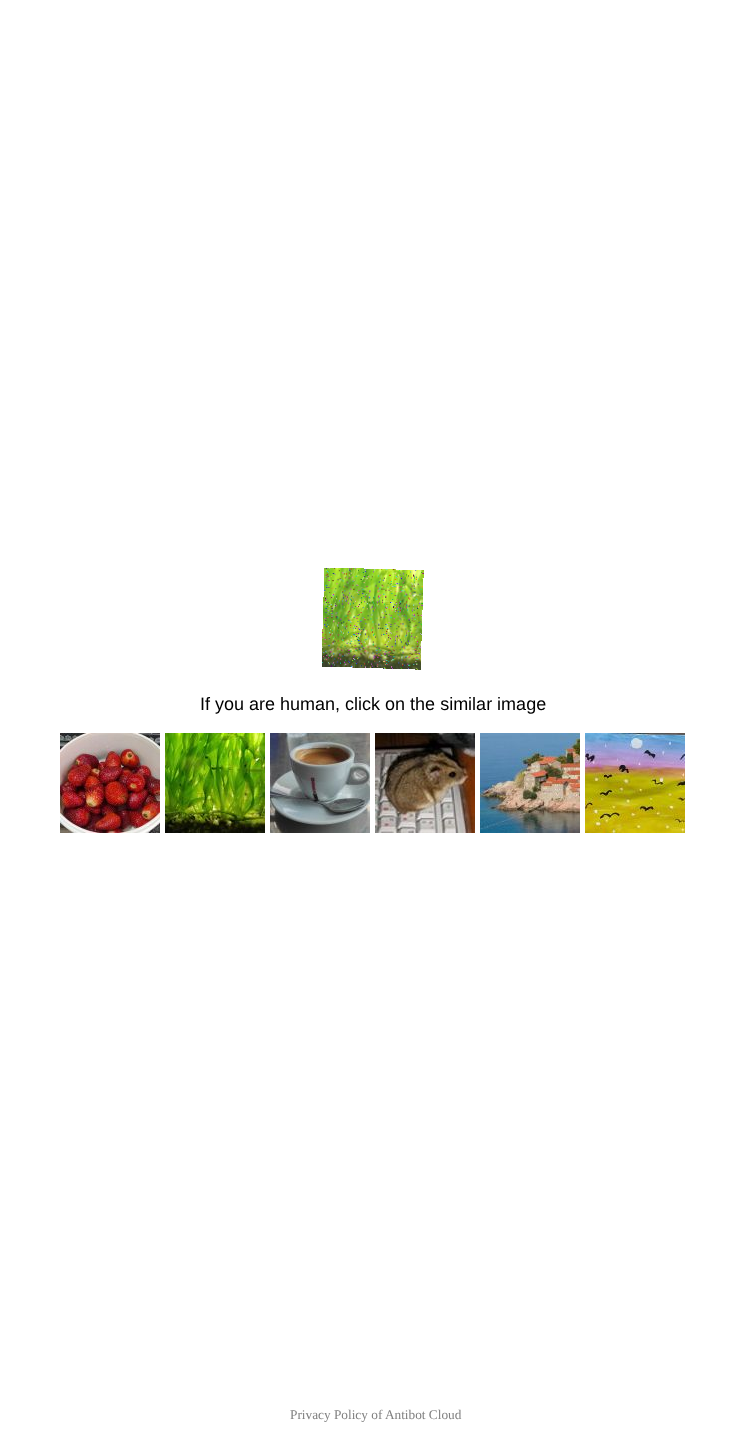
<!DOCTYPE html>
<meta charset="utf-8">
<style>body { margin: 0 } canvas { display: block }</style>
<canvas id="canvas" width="752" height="1433"></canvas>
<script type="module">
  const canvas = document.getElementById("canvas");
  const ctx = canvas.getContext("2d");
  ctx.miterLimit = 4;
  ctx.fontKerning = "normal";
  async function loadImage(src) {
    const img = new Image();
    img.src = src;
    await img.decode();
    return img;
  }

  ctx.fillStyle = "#ffffff";
  ctx.fillRect(0, 0, 752, 1433);
  ctx.drawImage(await loadImage("img1.png"), 322, 568, 102, 102);
  ctx.font = "18px Liberation Sans";
  ctx.fillStyle = "#000000";
  ctx.fillText("If you are human, click on the similar image", 200, 710);
  ctx.drawImage(await loadImage("img2.png"), 60, 733, 100, 100);
  ctx.drawImage(await loadImage("img3.png"), 165, 733, 100, 100);
  ctx.drawImage(await loadImage("img4.png"), 270, 733, 100, 100);
  ctx.drawImage(await loadImage("img5.png"), 375, 733, 100, 100);
  ctx.drawImage(await loadImage("img6.png"), 480, 733, 100, 100);
  ctx.drawImage(await loadImage("img7.png"), 585, 733, 100, 100);
  ctx.font = "13.3px Liberation Serif";
  ctx.fillStyle = "#808080";
  ctx.fillText("Privacy Policy of Antibot Cloud", 290, 1419);
</script>
